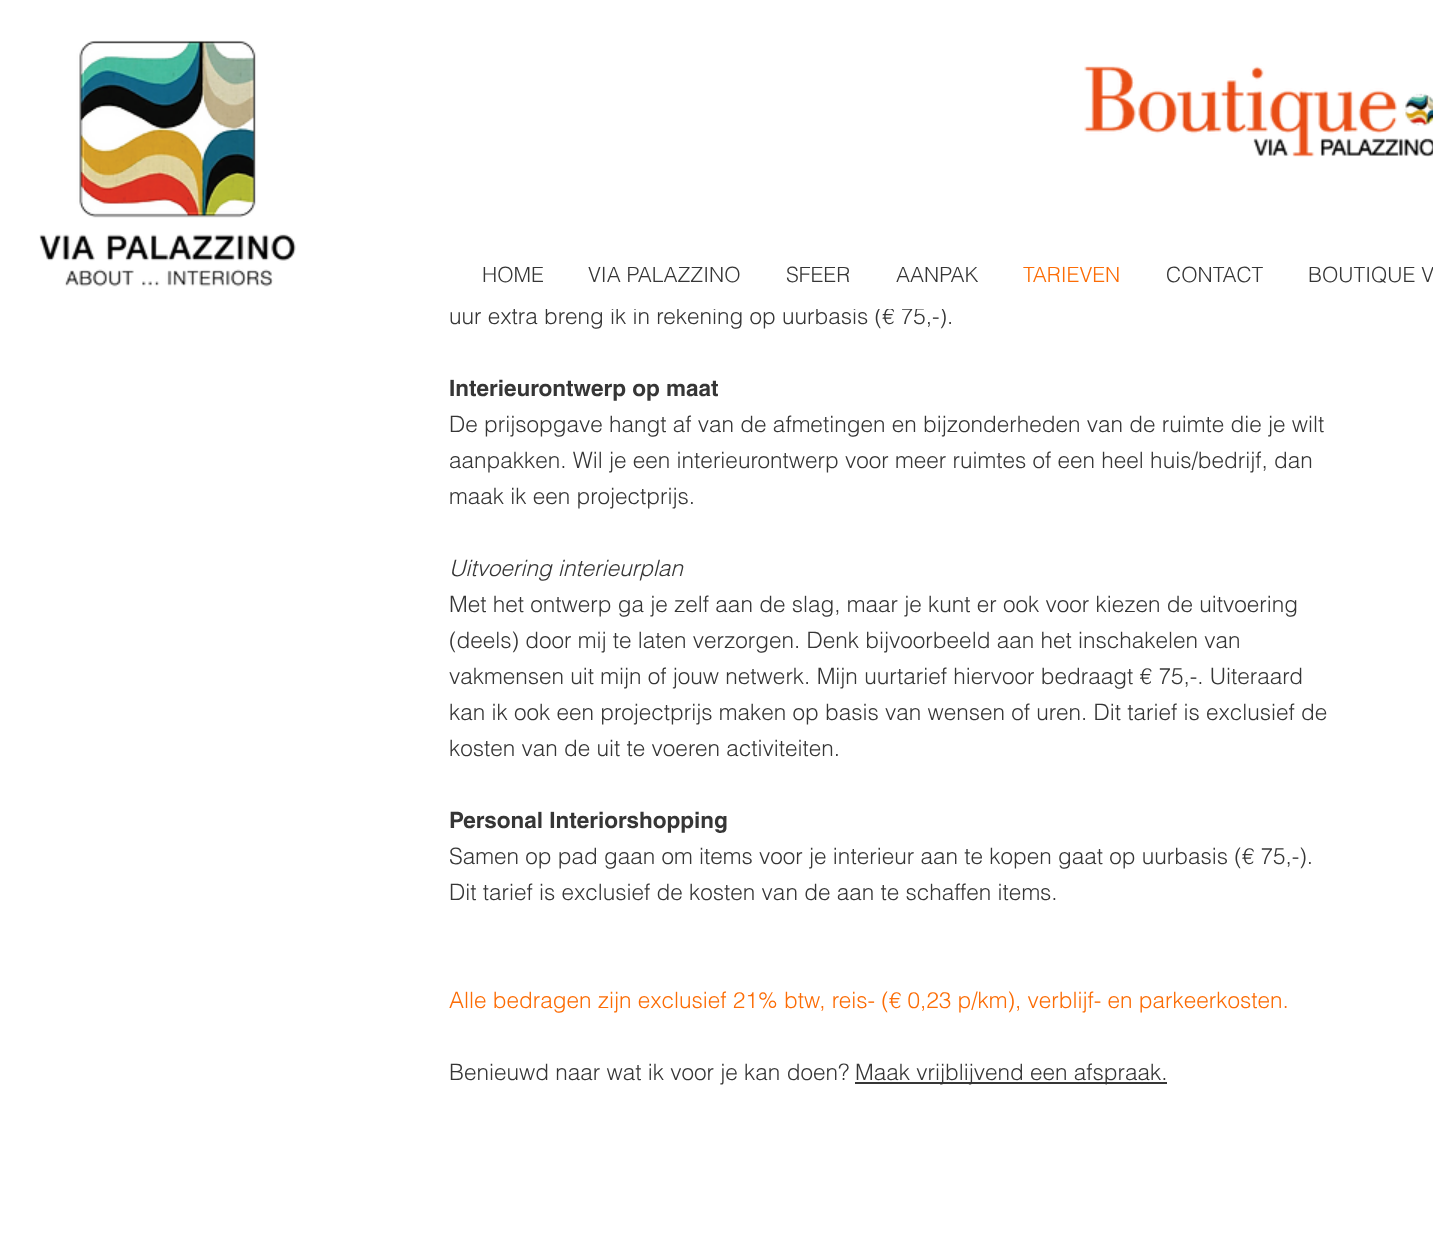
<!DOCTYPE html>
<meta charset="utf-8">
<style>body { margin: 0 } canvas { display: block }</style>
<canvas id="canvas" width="1433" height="1243"></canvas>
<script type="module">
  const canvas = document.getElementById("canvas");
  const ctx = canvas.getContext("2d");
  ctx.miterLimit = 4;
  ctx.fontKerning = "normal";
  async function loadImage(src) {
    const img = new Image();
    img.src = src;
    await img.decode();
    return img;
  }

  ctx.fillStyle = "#ffffff";
  ctx.fillRect(0, 0, 1433, 1243);
  ctx.drawImage(await loadImage("img1.png"), 39, 40, 257, 247);
  ctx.drawImage(await loadImage("img2.png"), 1084, 66, 349, 91);
  ctx.font = "300 21px helvetica";
  ctx.fillStyle = "#363636";
  ctx.fillText("HOME", 482, 282);
  ctx.fillText("VIA PALAZZINO", 588, 282);
  ctx.fillText("SFEER", 786, 282);
  ctx.fillText("AANPAK", 896, 282);
  ctx.fillStyle = "#fc6c05";
  ctx.fillText("TARIEVEN", 1023, 282);
  ctx.fillStyle = "#363636";
  ctx.fillText("CONTACT", 1166, 282);
  ctx.fillText("BOUTIQUE V", 1308, 282);
  ctx.font = "300 22.5px helvetica";
  ctx.fillText("uur extra breng ik in rekening op uurbasis (€ 75,-).", 449, 324);
  ctx.fillStyle = "#ffffff";
  ctx.fillRect(545, 307, 398, 2);
  ctx.font = "bold 22.5px helvetica";
  ctx.fillStyle = "#363636";
  ctx.fillText("Interieurontwerp op maat", 449, 396);
  ctx.font = "300 22.5px helvetica";
  ctx.fillText("De prijsopgave hangt af van de afmetingen en bijzonderheden van de ruimte die je wilt", 449, 432);
  ctx.fillText("aanpakken. Wil je een interieurontwerp voor meer ruimtes of een heel huis/bedrijf, dan", 449, 468);
  ctx.fillText("maak ik een projectprijs.", 449, 504);
  ctx.font = "italic 300 22.5px helvetica";
  ctx.fillText("Uitvoering interieurplan", 449, 576);
  ctx.font = "300 22.5px helvetica";
  ctx.fillText("Met het ontwerp ga je zelf aan de slag, maar je kunt er ook voor kiezen de uitvoering", 449, 612);
  ctx.fillText("(deels) door mij te laten verzorgen. Denk bijvoorbeeld aan het inschakelen van", 449, 648);
  ctx.fillText("vakmensen uit mijn of jouw netwerk. Mijn uurtarief hiervoor bedraagt € 75,-. Uiteraard", 449, 684);
  ctx.fillText("kan ik ook een projectprijs maken op basis van wensen of uren. Dit tarief is exclusief de", 449, 720);
  ctx.fillText("kosten van de uit te voeren activiteiten.", 449, 756);
  ctx.font = "bold 22.5px helvetica";
  ctx.fillText("Personal Interiorshopping", 449, 828);
  ctx.font = "300 22.5px helvetica";
  ctx.fillText("Samen op pad gaan om items voor je interieur aan te kopen gaat op uurbasis (€ 75,-).", 449, 864);
  ctx.fillText("Dit tarief is exclusief de kosten van de aan te schaffen items.", 449, 900);
  ctx.fillStyle = "#fc6c05";
  ctx.fillText("Alle bedragen zijn exclusief 21% btw, reis- (€ 0,23 p/km), verblijf- en parkeerkosten.", 449, 1008);
  ctx.fillStyle = "#363636";
  ctx.fillText("Benieuwd naar wat ik voor je kan doen?", 449, 1080);
  ctx.fillRect(855, 1082, 312, 2);
  ctx.fillText("Maak vrijblijvend een afspraak.", 855, 1080);
</script>
